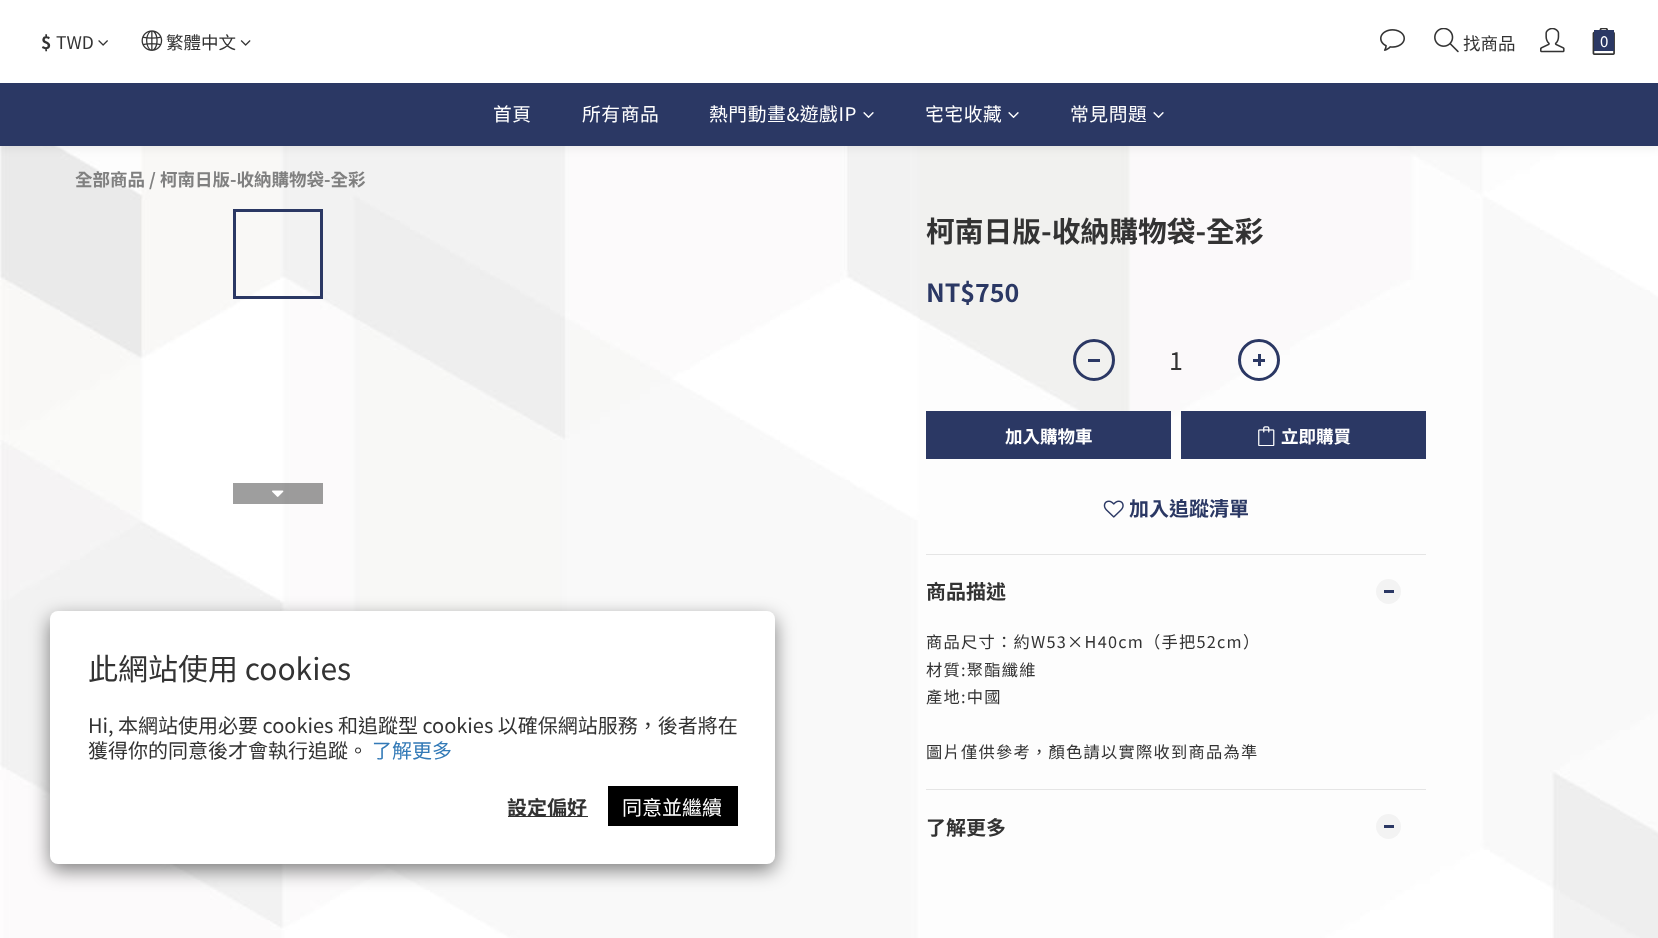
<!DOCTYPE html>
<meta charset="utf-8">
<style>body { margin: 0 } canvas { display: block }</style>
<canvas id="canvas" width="1658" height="938"></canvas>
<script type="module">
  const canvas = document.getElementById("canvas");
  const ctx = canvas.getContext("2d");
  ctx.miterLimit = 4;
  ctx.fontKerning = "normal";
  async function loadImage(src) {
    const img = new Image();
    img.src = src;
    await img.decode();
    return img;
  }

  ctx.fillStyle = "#ffffff";
  ctx.fillRect(0, 0, 1658, 938);
  ctx.drawImage(await loadImage("img1.png"), 0, 146, 1658, 792);
  ctx.fillStyle = "rgba(0, 0, 0, 0.06)";
  ctx.filter = "blur(4px)";
  ctx.beginPath();
  ctx.rect(0, 3, 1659, 146);
  ctx.fill();
  ctx.filter = "none";
  ctx.fillStyle = "#ffffff";
  ctx.fillRect(0, 0, 1658, 83);
  ctx.font = "bold 17.5px Noto Sans TC";
  ctx.fillStyle = "#333333";
  ctx.fillText("$", 41, 49);
  ctx.font = "17.5px Noto Sans TC";
  ctx.fillText("TWD", 56, 49);
  ctx.drawImage(await loadImage("img2.png"), 98, 40, 10, 6);
  ctx.drawImage(await loadImage("img3.png"), 141, 30, 22, 21);
  ctx.fillText("繁體中文", 166, 49);
  ctx.drawImage(await loadImage("img4.png"), 240, 40, 11, 6);
  ctx.drawImage(await loadImage("img5.png"), 1380, 29, 25, 22);
  ctx.drawImage(await loadImage("img6.png"), 1434, 28, 25, 25);
  ctx.fillText("找商品", 1463, 50);
  ctx.drawImage(await loadImage("img7.png"), 1540, 28, 25, 25);
  ctx.drawImage(await loadImage("img8.png"), 1592, 28, 23, 27);
  ctx.fillStyle = "#2b3864";
  ctx.fillRect(1594, 30, 20, 21);
  ctx.font = "15px Noto Sans TC";
  ctx.fillStyle = "#ffffff";
  ctx.fillText("0", 1600, 47);
  ctx.fillStyle = "#2b3864";
  ctx.fillRect(0, 83, 1658, 63);
  ctx.letterSpacing = "0.6px";
  ctx.font = "18.75px Noto Sans TC";
  ctx.fillStyle = "#ffffff";
  ctx.fillText("首頁", 493, 121);
  ctx.fillText("所有商品", 582, 121);
  ctx.fillText("熱門動畫&遊戲IP", 709, 121);
  ctx.drawImage(await loadImage("img9.png"), 863, 112, 11, 6);
  ctx.fillText("宅宅收藏", 925, 121);
  ctx.drawImage(await loadImage("img9.png"), 1008, 112, 11, 6);
  ctx.fillText("常見問題", 1070, 121);
  ctx.drawImage(await loadImage("img9.png"), 1153, 112, 11, 6);
  ctx.letterSpacing = "0px";
  ctx.font = "bold 17.5px Noto Sans TC";
  ctx.fillStyle = "#808080";
  ctx.fillText("全部商品", 75, 186);
  ctx.fillText("/", 149, 186);
  ctx.fillText("柯南日版-收納購物袋-全彩", 160, 186);
  ctx.strokeStyle = "#2b3864";
  ctx.lineWidth = 3;
  ctx.strokeRect(234.5, 210.5, 87, 87);
  ctx.fillStyle = "rgba(0, 0, 0, 0.38)";
  ctx.fillRect(233, 483, 90, 21);
  ctx.drawImage(await loadImage("img10.png"), 272, 490, 12, 7);
  ctx.font = "bold 28.75px Noto Sans TC";
  ctx.fillStyle = "#333333";
  ctx.fillText("柯南日版-收納購物袋-全彩", 926, 242);
  ctx.font = "bold 25px Noto Sans TC";
  ctx.fillStyle = "#2b3864";
  ctx.fillText("NT$750", 926, 302);
  ctx.beginPath();
  ctx.arc(1094, 360, 19.5, 0, Math.PI * 2);
  ctx.stroke();
  ctx.fillRect(1088, 359, 12, 3);
  ctx.font = "25px Noto Sans TC";
  ctx.fillStyle = "#333333";
  ctx.fillText("1", 1169, 370);
  ctx.beginPath();
  ctx.arc(1259, 360, 19.5, 0, Math.PI * 2);
  ctx.stroke();
  ctx.fillStyle = "#2b3864";
  ctx.fillRect(1253, 359, 12, 3);
  ctx.fillRect(1258, 354, 3, 12);
  ctx.fillRect(926, 411, 245, 48);
  ctx.font = "bold 17.5px Noto Sans TC";
  ctx.fillStyle = "#ffffff";
  ctx.fillText("加入購物車", 1005, 443);
  ctx.fillStyle = "#2b3864";
  ctx.fillRect(1181, 411, 245, 48);
  ctx.drawImage(await loadImage("img11.png"), 1258, 426, 17, 20);
  ctx.fillStyle = "#ffffff";
  ctx.fillText("立即購買", 1281, 443);
  ctx.drawImage(await loadImage("img12.png"), 1103, 500, 21, 18);
  ctx.font = "bold 20px Noto Sans TC";
  ctx.fillStyle = "#2b3864";
  ctx.fillText("加入追蹤清單", 1129, 516);
  ctx.fillStyle = "#e5e5e5";
  ctx.fillRect(926, 554, 500, 1);
  ctx.fillStyle = "#333333";
  ctx.fillText("商品描述", 926, 599);
  ctx.fillStyle = "#f3f3f3";
  ctx.beginPath();
  ctx.arc(1388.5, 591.5, 12.5, 0, Math.PI * 2);
  ctx.fill();
  ctx.fillStyle = "#2b3864";
  ctx.fillRect(1384, 590, 10, 3);
  ctx.letterSpacing = "1.25px";
  ctx.font = "16.25px Noto Sans TC";
  ctx.fillStyle = "#333333";
  ctx.fillText("商品尺寸：約W53×H40cm（手把52cm）", 926, 648);
  ctx.fillText("材質:聚酯纖維", 926, 676);
  ctx.fillText("產地:中國", 926, 703);
  ctx.fillText("圖片僅供參考，顏色請以實際收到商品為準", 926, 758);
  ctx.fillStyle = "#e5e5e5";
  ctx.fillRect(926, 789, 500, 1);
  ctx.letterSpacing = "0px";
  ctx.font = "bold 20px Noto Sans TC";
  ctx.fillStyle = "#333333";
  ctx.fillText("了解更多", 926, 835);
  ctx.fillStyle = "#f3f3f3";
  ctx.beginPath();
  ctx.arc(1388.5, 826.5, 12.5, 0, Math.PI * 2);
  ctx.fill();
  ctx.fillStyle = "#2b3864";
  ctx.fillRect(1384, 825, 10, 3);
  ctx.fillStyle = "rgba(0, 0, 0, 0.5)";
  ctx.filter = "blur(9.5px)";
  ctx.beginPath();
  ctx.roundRect(50, 618, 725, 252, 8);
  ctx.fill();
  ctx.filter = "none";
  ctx.fillStyle = "#ffffff";
  ctx.beginPath();
  ctx.roundRect(50, 611, 725, 253, 8);
  ctx.fill();
  ctx.font = "30px Noto Sans TC";
  ctx.fillStyle = "#333333";
  ctx.fillText("此網站使用 cookies", 88, 680);
  ctx.font = "20px Noto Sans TC";
  ctx.fillText("Hi, 本網站使用必要 cookies 和追蹤型 cookies 以確保網站服務，後者將在", 88, 733);
  ctx.fillText("獲得你的同意後才會執行追蹤。", 88, 758);
  ctx.fillStyle = "#337ab7";
  ctx.fillText("了解更多", 372, 758);
  ctx.fillStyle = "#333333";
  ctx.fillRect(508, 816, 80, 1);
  ctx.font = "bold 20px Noto Sans TC";
  ctx.fillText("設定偏好", 507, 815);
  ctx.fillStyle = "#000000";
  ctx.fillRect(608, 786, 130, 40);
  ctx.font = "20px Noto Sans TC";
  ctx.fillStyle = "#ffffff";
  ctx.fillText("同意並繼續", 622, 815);
</script>
